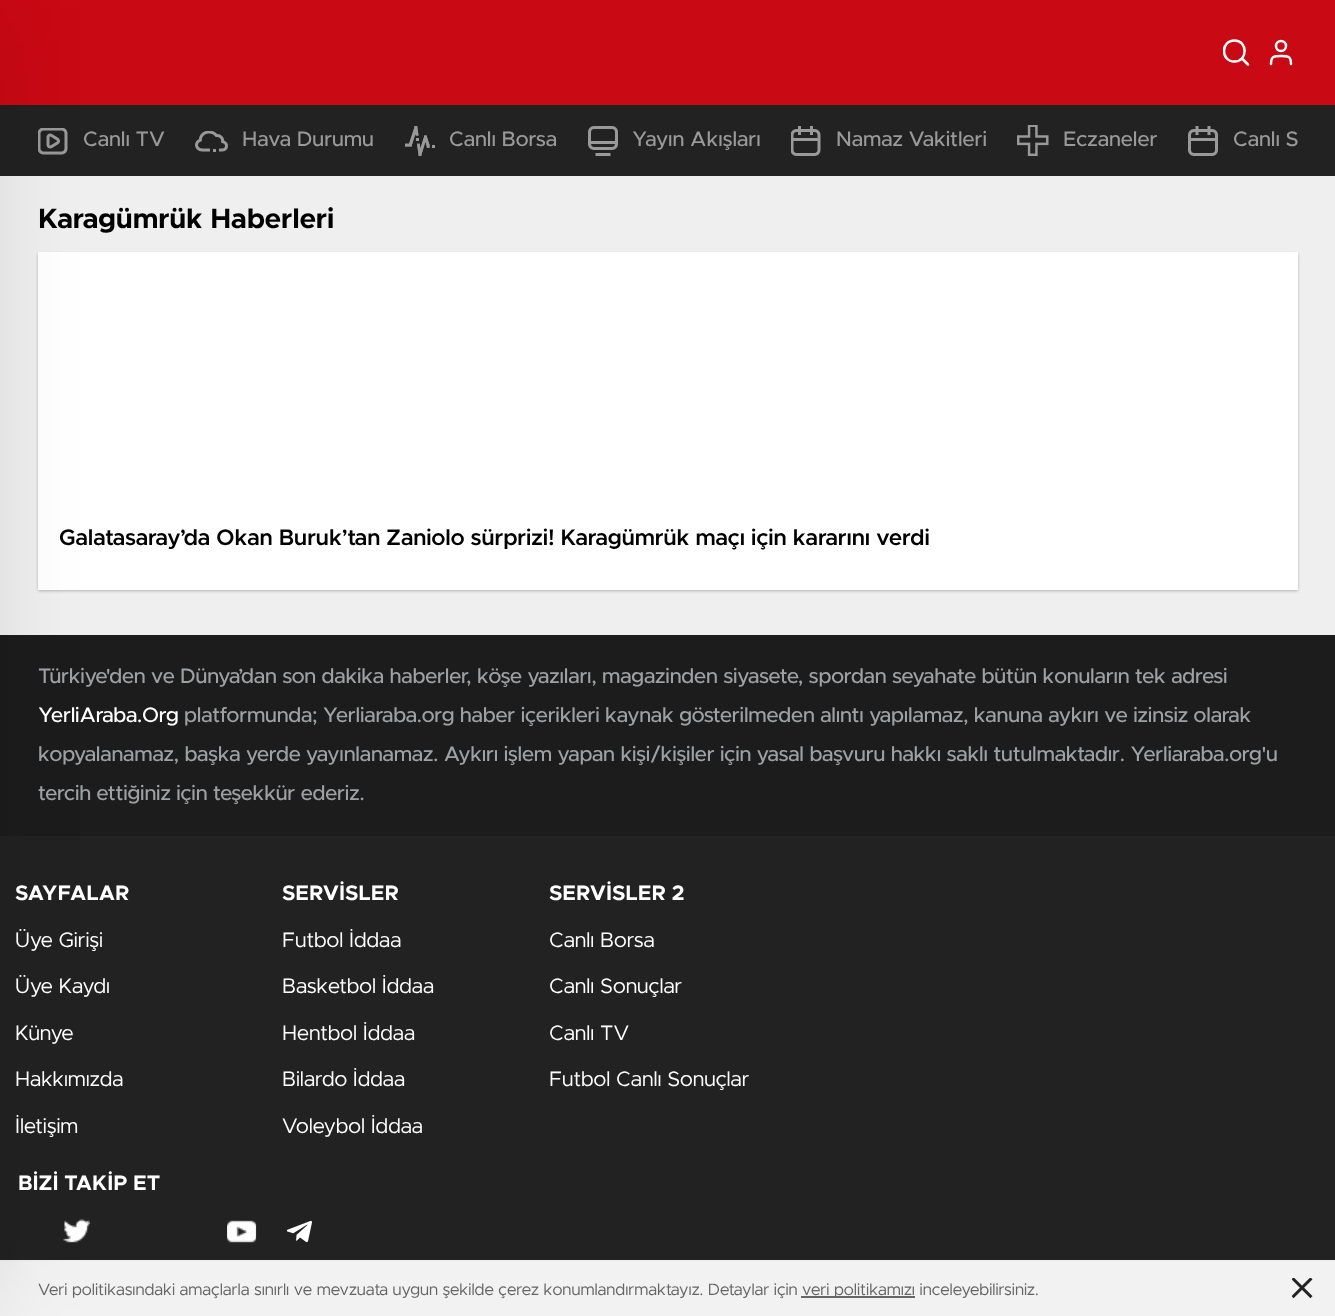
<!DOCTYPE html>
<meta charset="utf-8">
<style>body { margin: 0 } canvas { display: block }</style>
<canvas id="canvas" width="1335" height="1316"></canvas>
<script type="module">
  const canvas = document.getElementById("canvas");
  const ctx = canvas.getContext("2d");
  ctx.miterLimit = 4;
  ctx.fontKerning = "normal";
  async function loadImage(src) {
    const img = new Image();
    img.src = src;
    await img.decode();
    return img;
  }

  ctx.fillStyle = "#efefef";
  ctx.fillRect(0, 0, 1335, 1316);
  ctx.fillStyle = "#c90914";
  ctx.fillRect(0, 0, 1335, 105);
  ctx.fillStyle = "#222222";
  ctx.fillRect(0, 105, 1335, 71);
  ctx.drawImage(await loadImage("img1.png"), 38, 128, 30, 27);
  ctx.fillStyle = "rgba(17, 21, 25, 0.27)";
  ctx.filter = "blur(1.5px)";
  ctx.beginPath();
  ctx.rect(38, 254, 1260, 337);
  ctx.fill();
  ctx.filter = "none";
  ctx.fillStyle = "#ffffff";
  ctx.fillRect(38, 252, 1260, 338);
  ctx.fillStyle = "#222222";
  ctx.fillRect(0, 836, 1335, 424);
  ctx.fillStyle = "#f2f2f2";
  ctx.fillRect(0, 1262, 1335, 54);
  ctx.fillStyle = "#1c1c1c";
  ctx.fillRect(0, 635, 1335, 201);
  ctx.drawImage(await loadImage("img8.png"), 63, 1219, 27, 24);
  ctx.fillStyle = "rgba(0, 0, 0, 0.1)";
  ctx.filter = "blur(45px)";
  ctx.beginPath();
  ctx.rect(-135, 8, 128, 1302);
  ctx.fill();
  ctx.filter = "none";
  ctx.save();
  ctx.beginPath();
  ctx.rect(1223, 39, 27, 27);
  ctx.clip();
  ctx.beginPath();
  ctx.moveTo(1234.5, 61.5);
  ctx.bezierCurveTo(1248, 61.5, 1248, 40.5, 1234.5, 40.5);
  ctx.bezierCurveTo(1220.5, 40.5, 1220.5, 61.5, 1234.5, 61.5);
  ctx.closePath();
  ctx.strokeStyle = "#ffffff";
  ctx.lineWidth = 2.5;
  ctx.lineCap = "round";
  ctx.lineJoin = "round";
  ctx.stroke();
  ctx.restore();
  ctx.beginPath();
  ctx.moveTo(1242, 58.5);
  ctx.lineTo(1248, 64.5);
  ctx.moveTo(1291, 64);
  ctx.bezierCurveTo(1291, 56, 1288, 56, 1281, 56);
  ctx.bezierCurveTo(1274, 56, 1271, 56, 1271, 64);
  ctx.strokeStyle = "#ffffff";
  ctx.lineWidth = 2.5;
  ctx.lineCap = "round";
  ctx.lineJoin = "round";
  ctx.stroke();
  ctx.beginPath();
  ctx.arc(1281, 46, 5, 0, Math.PI * 2);
  ctx.stroke();
  ctx.font = "500 21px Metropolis";
  ctx.fillStyle = "#999999";
  ctx.fillText("Canlı TV", 83, 146);
  ctx.drawImage(await loadImage("img2.png"), 195, 131, 33, 21);
  ctx.fillText("Hava Durumu", 242, 146);
  ctx.drawImage(await loadImage("img3.png"), 405, 126, 30, 30);
  ctx.fillText("Canlı Borsa", 449, 146);
  ctx.drawImage(await loadImage("img4.png"), 588, 126, 30, 30);
  ctx.fillText("Yayın Akışları", 632, 146);
  ctx.drawImage(await loadImage("img5.png"), 791, 126, 30, 30);
  ctx.fillText("Namaz Vakitleri", 836, 146);
  ctx.drawImage(await loadImage("img6.png"), 1017, 125, 32, 31);
  ctx.fillText("Eczaneler", 1063, 146);
  ctx.drawImage(await loadImage("img7.png"), 1188, 126, 30, 30);
  ctx.fillText("Canlı S", 1233, 146);
  ctx.font = "bold 28px Metropolis";
  ctx.fillStyle = "#000000";
  ctx.fillText("Karagümrük Haberleri", 38, 228);
  ctx.font = "600 22.5px Metropolis";
  ctx.fillText("Galatasaray’da Okan Buruk’tan Zaniolo sürprizi! Karagümrük maçı için kararını verdi", 59, 545);
  ctx.letterSpacing = "-0.15px";
  ctx.font = "500 21px Metropolis";
  ctx.fillStyle = "#9da1a4";
  ctx.fillText("Türkiye'den ve Dünya’dan son dakika haberler, köşe yazıları, magazinden siyasete, spordan seyahate bütün konuların tek adresi", 38, 683);
  ctx.fillStyle = "#ffffff";
  ctx.fillText("YerliAraba.Org", 38, 722);
  ctx.fillStyle = "#9da1a4";
  ctx.fillText("platformunda; Yerliaraba.org haber içerikleri kaynak gösterilmeden alıntı yapılamaz, kanuna aykırı ve izinsiz olarak", 184, 722);
  ctx.fillText("kopyalanamaz, başka yerde yayınlanamaz. Aykırı işlem yapan kişi/kişiler için yasal başvuru hakkı saklı tutulmaktadır. Yerliaraba.org'u", 38, 761);
  ctx.fillText("tercih ettiğiniz için teşekkür ederiz.", 38, 800);
  ctx.letterSpacing = "0px";
  ctx.font = "bold 21px Metropolis";
  ctx.fillStyle = "#ffffff";
  ctx.fillText("SAYFALAR", 15, 900);
  ctx.font = "21px Metropolis";
  ctx.fillText("Üye Girişi", 15, 947);
  ctx.fillText("Üye Kaydı", 15, 993);
  ctx.fillText("Künye", 15, 1040);
  ctx.fillText("Hakkımızda", 15, 1086);
  ctx.fillText("İletişim", 15, 1133);
  ctx.font = "bold 21px Metropolis";
  ctx.fillText("SERVİSLER", 282, 900);
  ctx.font = "21px Metropolis";
  ctx.fillText("Futbol İddaa", 282, 947);
  ctx.fillText("Basketbol İddaa", 282, 993);
  ctx.fillText("Hentbol İddaa", 282, 1040);
  ctx.fillText("Bilardo İddaa", 282, 1086);
  ctx.fillText("Voleybol İddaa", 282, 1133);
  ctx.font = "bold 21px Metropolis";
  ctx.fillText("SERVİSLER 2", 549, 900);
  ctx.font = "21px Metropolis";
  ctx.fillText("Canlı Borsa", 549, 947);
  ctx.fillText("Canlı Sonuçlar", 549, 993);
  ctx.fillText("Canlı TV", 549, 1040);
  ctx.fillText("Futbol Canlı Sonuçlar", 549, 1086);
  ctx.font = "bold 21px Metropolis";
  ctx.fillText("BİZİ TAKİP ET", 18, 1190);
  ctx.drawImage(await loadImage("img9.png"), 227, 1220, 30, 23);
  ctx.drawImage(await loadImage("img10.png"), 287, 1220, 25, 23);
  ctx.font = "16.5px Metropolis";
  ctx.fillStyle = "#666666";
  ctx.fillText("Veri politikasındaki amaçlarla sınırlı ve mevzuata uygun şekilde çerez konumlandırmaktayız. Detaylar için", 38, 1295);
  ctx.fillRect(801, 1296, 114, 2);
  ctx.fillText("veri politikamızı inceleyebilirsiniz.", 802, 1295);
  ctx.drawImage(await loadImage("img11.png"), 1292, 1278, 21, 21);
</script>
